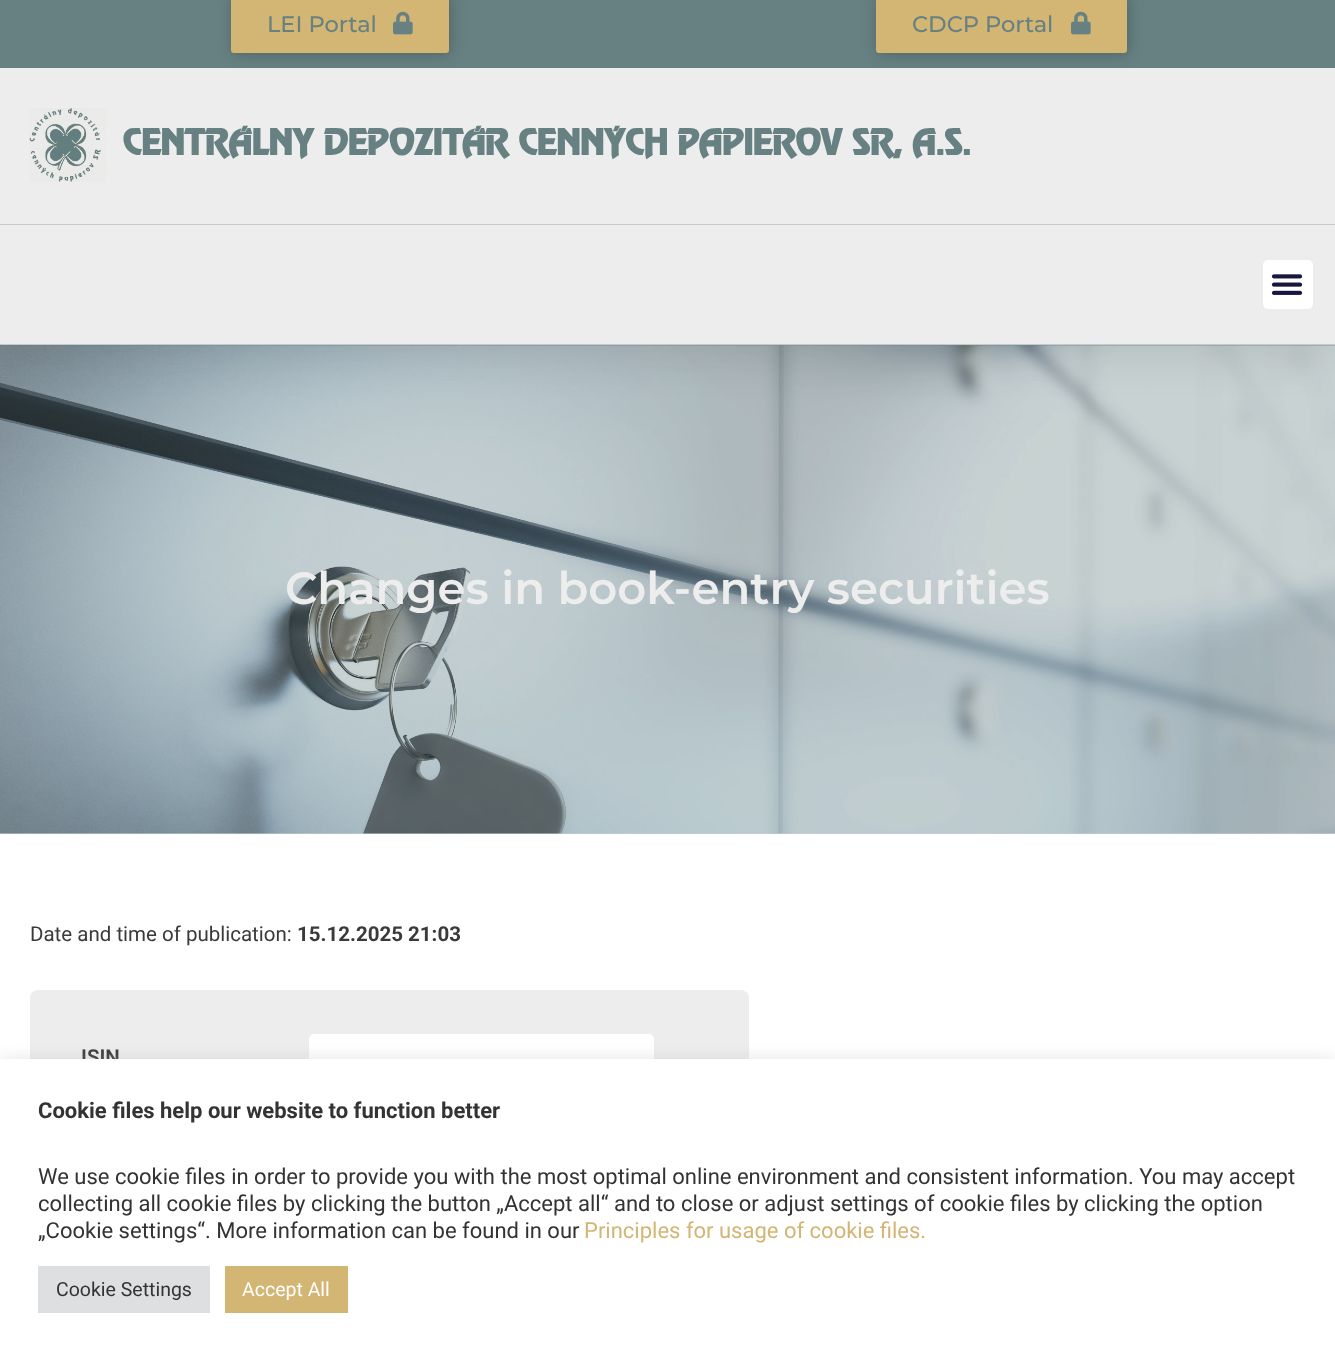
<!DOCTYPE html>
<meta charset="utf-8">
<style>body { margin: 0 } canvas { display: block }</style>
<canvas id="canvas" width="1335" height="1357"></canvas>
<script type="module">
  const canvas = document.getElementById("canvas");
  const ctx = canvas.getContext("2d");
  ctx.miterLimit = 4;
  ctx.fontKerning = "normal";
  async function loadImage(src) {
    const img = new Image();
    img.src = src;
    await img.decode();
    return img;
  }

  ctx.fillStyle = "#ffffff";
  ctx.fillRect(0, 0, 1335, 1357);
  ctx.fillStyle = "#c8d2d2";
  ctx.fillRect(0, 833, 1335, 1);
  ctx.drawImage(await loadImage("img4.png"), 0, 345, 1335, 489);
  ctx.fillStyle = "rgba(0, 0, 0, 0.1)";
  ctx.filter = "blur(22.5px)";
  ctx.beginPath();
  ctx.rect(0, -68, 1335, 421);
  ctx.fill();
  ctx.filter = "none";
  ctx.fillStyle = "#678182";
  ctx.fillRect(0, 0, 1335, 68);
  ctx.fillStyle = "rgba(2, 1, 1, 0.23)";
  ctx.filter = "blur(7.5px)";
  ctx.beginPath();
  ctx.roundRect(233, -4, 217, 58, 3);
  ctx.fill();
  ctx.filter = "none";
  ctx.fillStyle = "#d3b574";
  ctx.beginPath();
  ctx.roundRect(231, -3, 218, 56, 3);
  ctx.fill();
  ctx.font = "500 22.5px Montserrat";
  ctx.fillStyle = "#678182";
  ctx.fillText("LEI Portal", 267, 32);
  ctx.drawImage(await loadImage("img1.png"), 393, 11, 20, 24);
  ctx.fillStyle = "rgba(2, 1, 1, 0.23)";
  ctx.filter = "blur(7.5px)";
  ctx.beginPath();
  ctx.roundRect(878, -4, 250, 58, 3);
  ctx.fill();
  ctx.filter = "none";
  ctx.fillStyle = "#d3b574";
  ctx.beginPath();
  ctx.roundRect(876, -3, 251, 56, 3);
  ctx.fill();
  ctx.fillStyle = "#678182";
  ctx.fillText("CDCP Portal", 912, 32);
  ctx.drawImage(await loadImage("img1.png"), 1071, 11, 20, 24);
  ctx.fillStyle = "#ededed";
  ctx.fillRect(0, 68, 1335, 156);
  ctx.fillStyle = "#c2cacb";
  ctx.fillRect(0, 224, 1335, 1);
  ctx.drawImage(await loadImage("img2.png"), 29, 108, 78, 74);
  ctx.font = "40.5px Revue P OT";
  ctx.fillStyle = "#678182";
  ctx.fillText("CENTRÁLNY DEPOZITÁR CENNÝCH PAPIEROV SR, A.S.", 123, 155);
  ctx.fillStyle = "#ededed";
  ctx.fillRect(0, 225, 1335, 120);
  ctx.fillStyle = "rgba(103, 129, 130, 0.32)";
  ctx.fillRect(0, 344, 1335, 2);
  ctx.fillStyle = "#ffffff";
  ctx.beginPath();
  ctx.roundRect(1263, 260, 50, 49, 5);
  ctx.fill();
  ctx.drawImage(await loadImage("img3.png"), 1271, 274, 32, 21);
  ctx.font = "600 45px Montserrat";
  ctx.fillStyle = "#ededed";
  ctx.fillText("Changes in book-entry securities", 285, 604);
  ctx.font = "20.5px Roboto";
  ctx.fillStyle = "#3a3a3a";
  ctx.fillText("Date and time of publication:", 30, 941);
  ctx.font = "bold 20.5px Roboto";
  ctx.fillText("15.12.2025 21:03", 297, 941);
  ctx.fillStyle = "#ededed";
  ctx.beginPath();
  ctx.roundRect(30, 990, 719, 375, 8);
  ctx.fill();
  ctx.font = "600 20.5px Roboto";
  ctx.fillStyle = "#3a3a3a";
  ctx.fillText("ISIN", 81, 1064);
  ctx.fillStyle = "#ffffff";
  ctx.beginPath();
  ctx.roundRect(309, 1034, 345, 45, 5);
  ctx.fill();
  ctx.fillStyle = "rgba(172, 171, 171, 0.3)";
  ctx.filter = "blur(7.5px)";
  ctx.beginPath();
  ctx.rect(0, 1058, 1335, 298);
  ctx.fill();
  ctx.filter = "none";
  ctx.fillStyle = "#ffffff";
  ctx.fillRect(0, 1059, 1335, 298);
  ctx.font = "bold 22px Roboto";
  ctx.fillStyle = "#333333";
  ctx.fillText("Cookie files help our website to function better", 38, 1118);
  ctx.font = "22px Roboto";
  ctx.fillText("We use cookie files in order to provide you with the most optimal online environment and consistent information. You may accept", 38, 1184);
  ctx.fillText("collecting all cookie files by clicking the button „Accept all“ and to close or adjust settings of cookie files by clicking the option", 38, 1211);
  ctx.fillText("„Cookie settings“. More information can be found in our", 38, 1238);
  ctx.fillStyle = "#d3b574";
  ctx.fillText("Principles for usage of cookie files.", 584, 1238);
  ctx.fillStyle = "#dedfe0";
  ctx.fillRect(38, 1266, 172, 47);
  ctx.font = "19.5px Roboto";
  ctx.fillStyle = "#333333";
  ctx.fillText("Cookie Settings", 56, 1296);
  ctx.fillStyle = "#d3b574";
  ctx.fillRect(225, 1266, 123, 47);
  ctx.fillStyle = "#ffffff";
  ctx.fillText("Accept All", 242, 1296);
</script>
